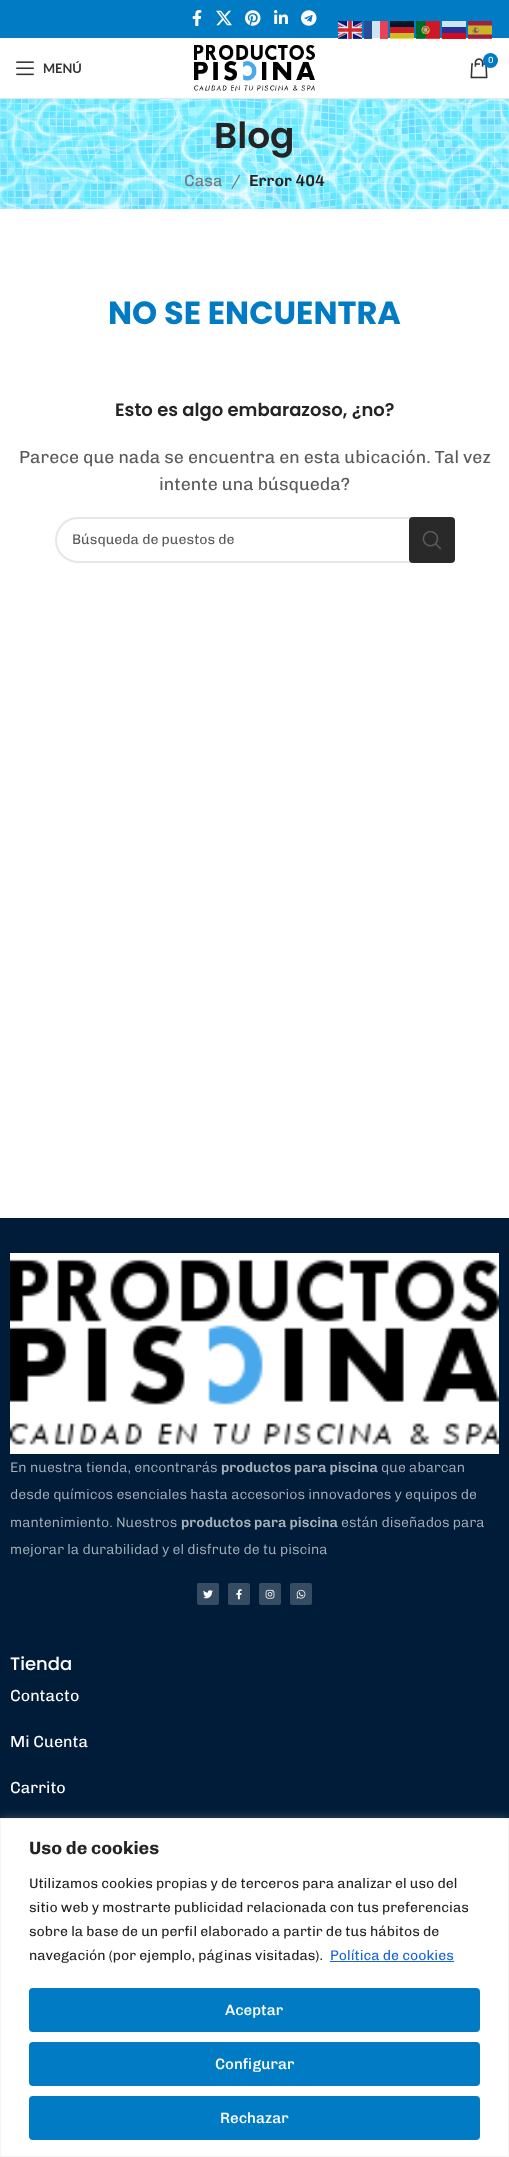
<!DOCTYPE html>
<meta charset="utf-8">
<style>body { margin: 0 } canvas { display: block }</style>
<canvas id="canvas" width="509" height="2157"></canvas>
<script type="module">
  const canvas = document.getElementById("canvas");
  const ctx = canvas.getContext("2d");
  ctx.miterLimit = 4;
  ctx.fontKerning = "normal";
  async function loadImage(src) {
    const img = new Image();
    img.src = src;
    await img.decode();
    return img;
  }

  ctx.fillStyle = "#ffffff";
  ctx.fillRect(0, 0, 509, 2157);
  ctx.fillStyle = "#d60b1f";
  ctx.fillRect(442, 38, 24, 1);
  ctx.fillStyle = "#ffd633";
  ctx.fillRect(390, 38, 24, 1);
  ctx.fillStyle = "#f54659";
  ctx.fillRect(380, 38, 8, 1);
  ctx.fillStyle = "#335199";
  ctx.fillRect(364, 38, 8, 1);
  ctx.fillStyle = "#007bc4";
  ctx.fillRect(0, 0, 509, 38);
  ctx.drawImage(await loadImage("img1.png"), 338, 21, 24, 18);
  ctx.fillStyle = "#001927";
  ctx.fillRect(390, 21, 24, 6);
  ctx.drawImage(await loadImage("img2.png"), 416, 21, 24, 18);
  ctx.drawImage(await loadImage("img3.png"), 468, 21, 24, 18);
  ctx.fillStyle = "#cc1927";
  ctx.fillRect(390, 27, 24, 6);
  ctx.fillStyle = "#cce5f3";
  ctx.fillRect(442, 21, 24, 6);
  ctx.fillStyle = "#2a2f95";
  ctx.fillRect(442, 27, 24, 6);
  ctx.fillStyle = "#d40a1f";
  ctx.fillRect(442, 33, 24, 5);
  ctx.fillStyle = "#ccbc27";
  ctx.fillRect(390, 33, 24, 5);
  ctx.fillStyle = "#cce5f3";
  ctx.fillRect(372, 21, 8, 17);
  ctx.fillStyle = "#eb4157";
  ctx.fillRect(380, 21, 8, 17);
  ctx.fillStyle = "#294c96";
  ctx.fillRect(364, 21, 8, 17);
  ctx.drawImage(await loadImage("img4.png"), 192, 10, 10, 16);
  ctx.drawImage(await loadImage("img5.png"), 216, 10, 16, 16);
  ctx.drawImage(await loadImage("img6.png"), 245, 10, 16, 16);
  ctx.drawImage(await loadImage("img7.png"), 274, 10, 14, 14);
  ctx.drawImage(await loadImage("img8.png"), 301, 10, 16, 16);
  ctx.fillStyle = "#e8e8e8";
  ctx.fillRect(0, 98, 509, 1);
  ctx.drawImage(await loadImage("img9.png"), 194, 45, 121, 46);
  ctx.drawImage(await loadImage("img10.png"), 470, 58, 18, 21);
  ctx.fillStyle = "#007bc4";
  ctx.beginPath();
  ctx.arc(490.5, 60.5, 7.5, 0, Math.PI * 2);
  ctx.fill();
  ctx.font = "9px Chivo";
  ctx.fillStyle = "#ffffff";
  ctx.fillText("0", 488, 63);
  ctx.drawImage(await loadImage("img11.png"), 16, 61, 18, 15);
  ctx.font = "bold 13px Lato";
  ctx.fillStyle = "#333333";
  ctx.fillText("MENÚ", 43, 73);
  ctx.drawImage(await loadImage("img12.png"), 0, 99, 509, 110);
  ctx.font = "600 36px Poppins";
  ctx.fillStyle = "#242424";
  ctx.fillText("Blog", 214, 148);
  ctx.font = "16px Chivo";
  ctx.fillStyle = "#767676";
  ctx.fillText("Casa", 184, 186);
  ctx.fillText("/", 231, 186);
  ctx.font = "600 16px Chivo";
  ctx.fillStyle = "#242424";
  ctx.fillText("Error 404", 249, 186);
  ctx.font = "bold 32px Poppins";
  ctx.fillStyle = "#007bc4";
  ctx.fillText("NO SE ENCUENTRA", 108, 324);
  ctx.font = "600 18px Poppins";
  ctx.fillStyle = "#242424";
  ctx.fillText("Esto es algo embarazoso, ¿no?", 115, 416);
  ctx.font = "17.6px Chivo";
  ctx.fillStyle = "#5a5a5a";
  ctx.fillText("Parece que nada se encuentra en esta ubicación. Tal vez", 19, 463);
  ctx.fillText("intente una búsqueda?", 159, 490);
  ctx.beginPath();
  ctx.roundRect(56, 518, 398, 44, 22);
  ctx.strokeStyle = "#e6e6e6";
  ctx.lineWidth = 2;
  ctx.stroke();
  ctx.font = "14px Chivo";
  ctx.fillText("Búsqueda de puestos de", 72, 544);
  ctx.fillStyle = "#292929";
  ctx.beginPath();
  ctx.roundRect(409, 517, 46, 46, 4);
  ctx.fill();
  ctx.drawImage(await loadImage("img13.png"), 422, 530, 20, 20);
  ctx.fillStyle = "#001c38";
  ctx.fillRect(0, 1218, 509, 600);
  ctx.fillStyle = "#ffffff";
  ctx.fillRect(10, 1253, 489, 201);
  ctx.drawImage(await loadImage("img14.png"), 10, 1259, 489, 186);
  ctx.font = "300 14px Chivo";
  ctx.fillStyle = "#a6b0b9";
  ctx.fillText("En nuestra tienda, encontrarás", 10, 1472);
  ctx.font = "600 14px Chivo";
  ctx.fillText("productos para piscina", 221, 1472);
  ctx.font = "300 14px Chivo";
  ctx.fillText("que abarcan", 381, 1472);
  ctx.fillText("desde químicos esenciales hasta accesorios innovadores y equipos de", 10, 1499);
  ctx.fillText("mantenimiento. Nuestros", 10, 1527);
  ctx.font = "600 14px Chivo";
  ctx.fillText("productos para piscina", 181, 1527);
  ctx.font = "300 14px Chivo";
  ctx.fillText("están diseñados para", 341, 1527);
  ctx.fillText("mejorar la durabilidad y el disfrute de tu piscina", 10, 1554);
  ctx.fillStyle = "#364c62";
  ctx.beginPath();
  ctx.roundRect(197, 1583, 22, 22, 2);
  ctx.fill();
  ctx.drawImage(await loadImage("img15.png"), 203, 1590, 10, 9);
  ctx.beginPath();
  ctx.roundRect(228, 1583, 22, 22, 2);
  ctx.fill();
  ctx.drawImage(await loadImage("img16.png"), 236, 1589, 6, 11);
  ctx.beginPath();
  ctx.roundRect(259, 1583, 22, 22, 2);
  ctx.fill();
  ctx.drawImage(await loadImage("img17.png"), 265, 1589, 10, 10);
  ctx.beginPath();
  ctx.roundRect(290, 1583, 22, 22, 2);
  ctx.fill();
  ctx.drawImage(await loadImage("img18.png"), 296, 1589, 10, 10);
  ctx.font = "500 18px Poppins";
  ctx.fillStyle = "#ffffff";
  ctx.fillText("Tienda", 10, 1670);
  ctx.font = "16px Chivo";
  ctx.fillText("Contacto", 10, 1701);
  ctx.fillText("Mi Cuenta", 10, 1747);
  ctx.fillText("Carrito", 10, 1793);
  ctx.fillStyle = "rgba(172, 171, 171, 0.3)";
  ctx.filter = "blur(5px)";
  ctx.beginPath();
  ctx.rect(0, 1817, 509, 339);
  ctx.fill();
  ctx.filter = "none";
  ctx.fillStyle = "#ffffff";
  ctx.beginPath();
  ctx.rect(0.5, 1818.5, 508, 338);
  ctx.fill();
  ctx.strokeStyle = "#f4f4f4";
  ctx.lineWidth = 1;
  ctx.stroke();
  ctx.font = "bold 18px Chivo";
  ctx.fillStyle = "#242424";
  ctx.fillText("Uso de cookies", 29, 1854);
  ctx.font = "14px Chivo";
  ctx.fillText("Utilizamos cookies propias y de terceros para analizar el uso del", 29, 1888);
  ctx.fillText("sitio web y mostrarte publicidad relacionada con tus preferencias", 29, 1912);
  ctx.fillText("sobre la base de un perfil elaborado a partir de tus hábitos de", 29, 1936);
  ctx.fillText("navegación (por ejemplo, páginas visitadas).", 29, 1960);
  ctx.fillStyle = "#1863dc";
  ctx.fillText("Política de cookies", 330, 1960);
  ctx.fillRect(330, 1961, 124, 1);
  ctx.fillStyle = "#007bc4";
  ctx.beginPath();
  ctx.roundRect(30, 1989, 449, 42, 3);
  ctx.fill();
  ctx.strokeStyle = "#007bc4";
  ctx.lineWidth = 2;
  ctx.stroke();
  ctx.font = "500 15px Chivo";
  ctx.fillStyle = "#ffffff";
  ctx.fillText("Aceptar", 225, 2015);
  ctx.fillStyle = "#007bc4";
  ctx.beginPath();
  ctx.roundRect(30, 2043, 449, 42, 3);
  ctx.fill();
  ctx.stroke();
  ctx.fillStyle = "#ffffff";
  ctx.fillText("Configurar", 215, 2069);
  ctx.fillStyle = "#007bc4";
  ctx.beginPath();
  ctx.roundRect(30, 2097, 449, 42, 3);
  ctx.fill();
  ctx.stroke();
  ctx.fillStyle = "#ffffff";
  ctx.fillText("Rechazar", 220, 2123);
</script>
